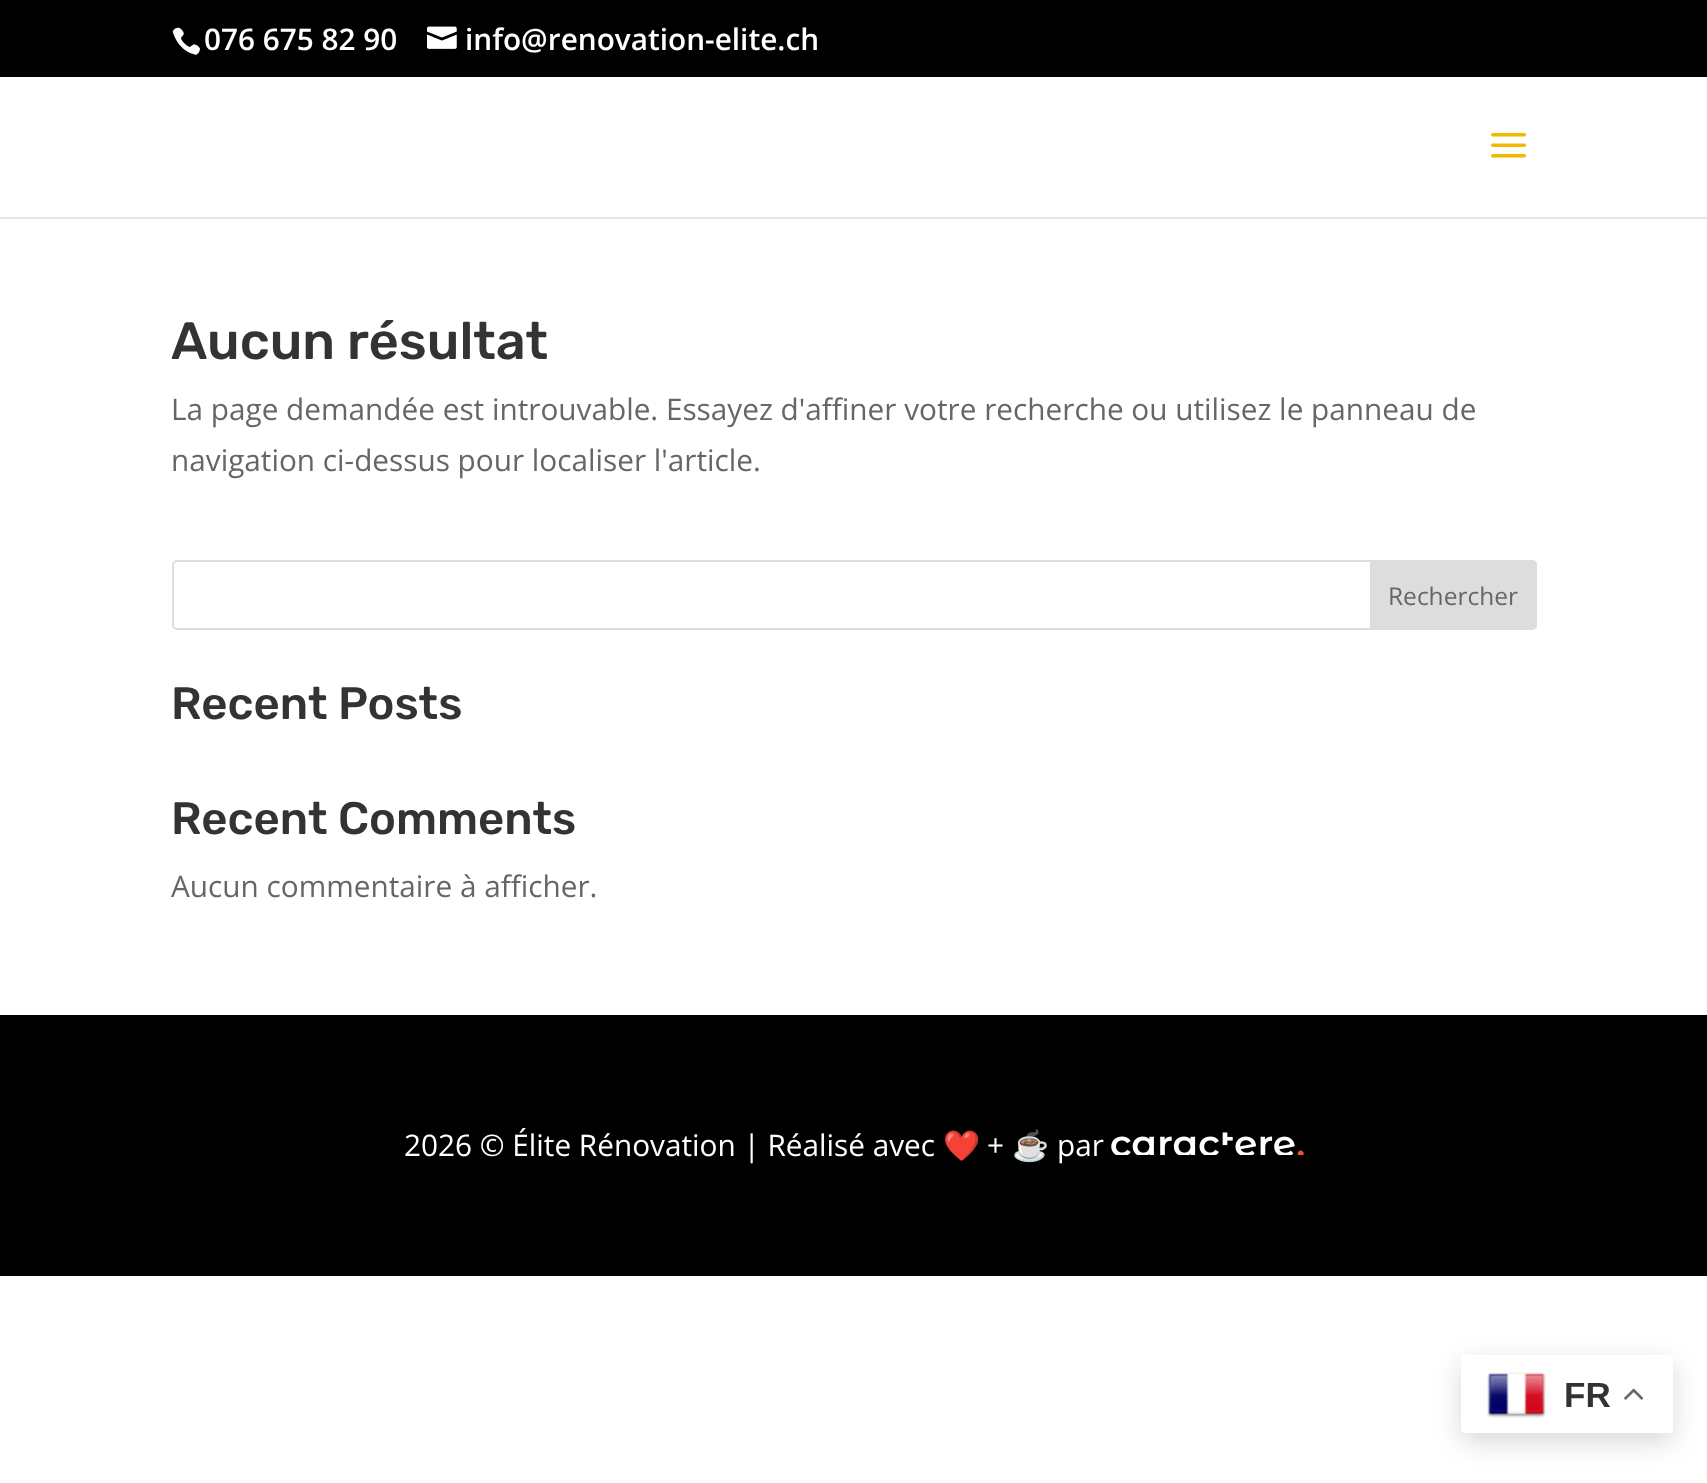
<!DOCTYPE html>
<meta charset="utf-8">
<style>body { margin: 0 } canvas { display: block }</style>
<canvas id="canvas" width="1707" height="1483"></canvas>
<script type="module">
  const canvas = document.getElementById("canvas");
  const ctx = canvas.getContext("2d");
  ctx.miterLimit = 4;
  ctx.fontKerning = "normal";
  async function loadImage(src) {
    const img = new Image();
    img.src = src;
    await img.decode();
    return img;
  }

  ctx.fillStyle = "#ffffff";
  ctx.fillRect(0, 0, 1707, 1483);
  ctx.fillStyle = "#000000";
  ctx.fillRect(0, 0, 1707, 77);
  ctx.drawImage(await loadImage("img1.png"), 172, 27, 28, 28);
  ctx.font = "600 29.75px Open Sans";
  ctx.fillStyle = "#ffffff";
  ctx.fillText("076 675 82 90", 204, 50);
  ctx.drawImage(await loadImage("img2.png"), 427, 26, 30, 23);
  ctx.fillText("info@renovation-elite.ch", 465, 50);
  ctx.fillStyle = "#e6e6e6";
  ctx.fillRect(0, 217, 1707, 2);
  ctx.drawImage(await loadImage("img3.png"), 1491, 133, 35, 25);
  ctx.font = "500 52.5px Rubik";
  ctx.fillStyle = "#333333";
  ctx.fillText("Aucun résultat", 171, 359);
  ctx.font = "29.75px Open Sans";
  ctx.fillStyle = "#666666";
  ctx.fillText("La page demandée est introuvable. Essayez d'affiner votre recherche ou utilisez le panneau de", 171, 420);
  ctx.fillText("navigation ci-dessus pour localiser l'article.", 171, 471);
  ctx.beginPath();
  ctx.roundRect(173, 561, 1363, 68, 4);
  ctx.strokeStyle = "#dddddd";
  ctx.lineWidth = 2;
  ctx.stroke();
  ctx.fillStyle = "#dddddd";
  ctx.beginPath();
  ctx.roundRect(1371, 561, 165, 68, [0, 4, 4, 0]);
  ctx.fill();
  ctx.stroke();
  ctx.font = "24.5px Open Sans";
  ctx.fillStyle = "#666666";
  ctx.fillText("Rechercher", 1388, 605);
  ctx.font = "500 45.5px Rubik";
  ctx.fillStyle = "#333333";
  ctx.fillText("Recent Posts", 171, 719);
  ctx.fillText("Recent Comments", 171, 834);
  ctx.font = "29.75px Open Sans";
  ctx.fillStyle = "#666666";
  ctx.fillText("Aucun commentaire à afficher.", 171, 897);
  ctx.fillStyle = "#000000";
  ctx.fillRect(0, 1015, 1707, 261);
  ctx.fillStyle = "#ffffff";
  ctx.fillText("2026 © Élite Rénovation | Réalisé avec", 404, 1156);
  ctx.font = "29.75px Noto Color Emoji";
  ctx.fillText("❤️", 943, 1156);
  ctx.font = "29.75px Open Sans";
  ctx.fillText("+", 987, 1156);
  ctx.font = "29.75px Noto Color Emoji";
  ctx.fillText("☕️", 1012, 1156);
  ctx.font = "29.75px Open Sans";
  ctx.fillText("par", 1057, 1156);
  ctx.drawImage(await loadImage("img4.png"), 1111, 1132, 193, 23);
  ctx.fillStyle = "rgba(0, 0, 0, 0.15)";
  ctx.filter = "blur(13px)";
  ctx.beginPath();
  ctx.roundRect(1461, 1363, 212, 79, 4);
  ctx.fill();
  ctx.filter = "none";
  ctx.fillStyle = "#ffffff";
  ctx.beginPath();
  ctx.roundRect(1461, 1355, 212, 78, 4);
  ctx.fill();
  ctx.drawImage(await loadImage("img5.png"), 1487, 1372, 59, 46);
  ctx.font = "bold 35px Liberation Sans";
  ctx.fillStyle = "#333333";
  ctx.fillText("FR", 1564, 1407);
  ctx.drawImage(await loadImage("img6.png"), 1624, 1388, 19, 12);
</script>
